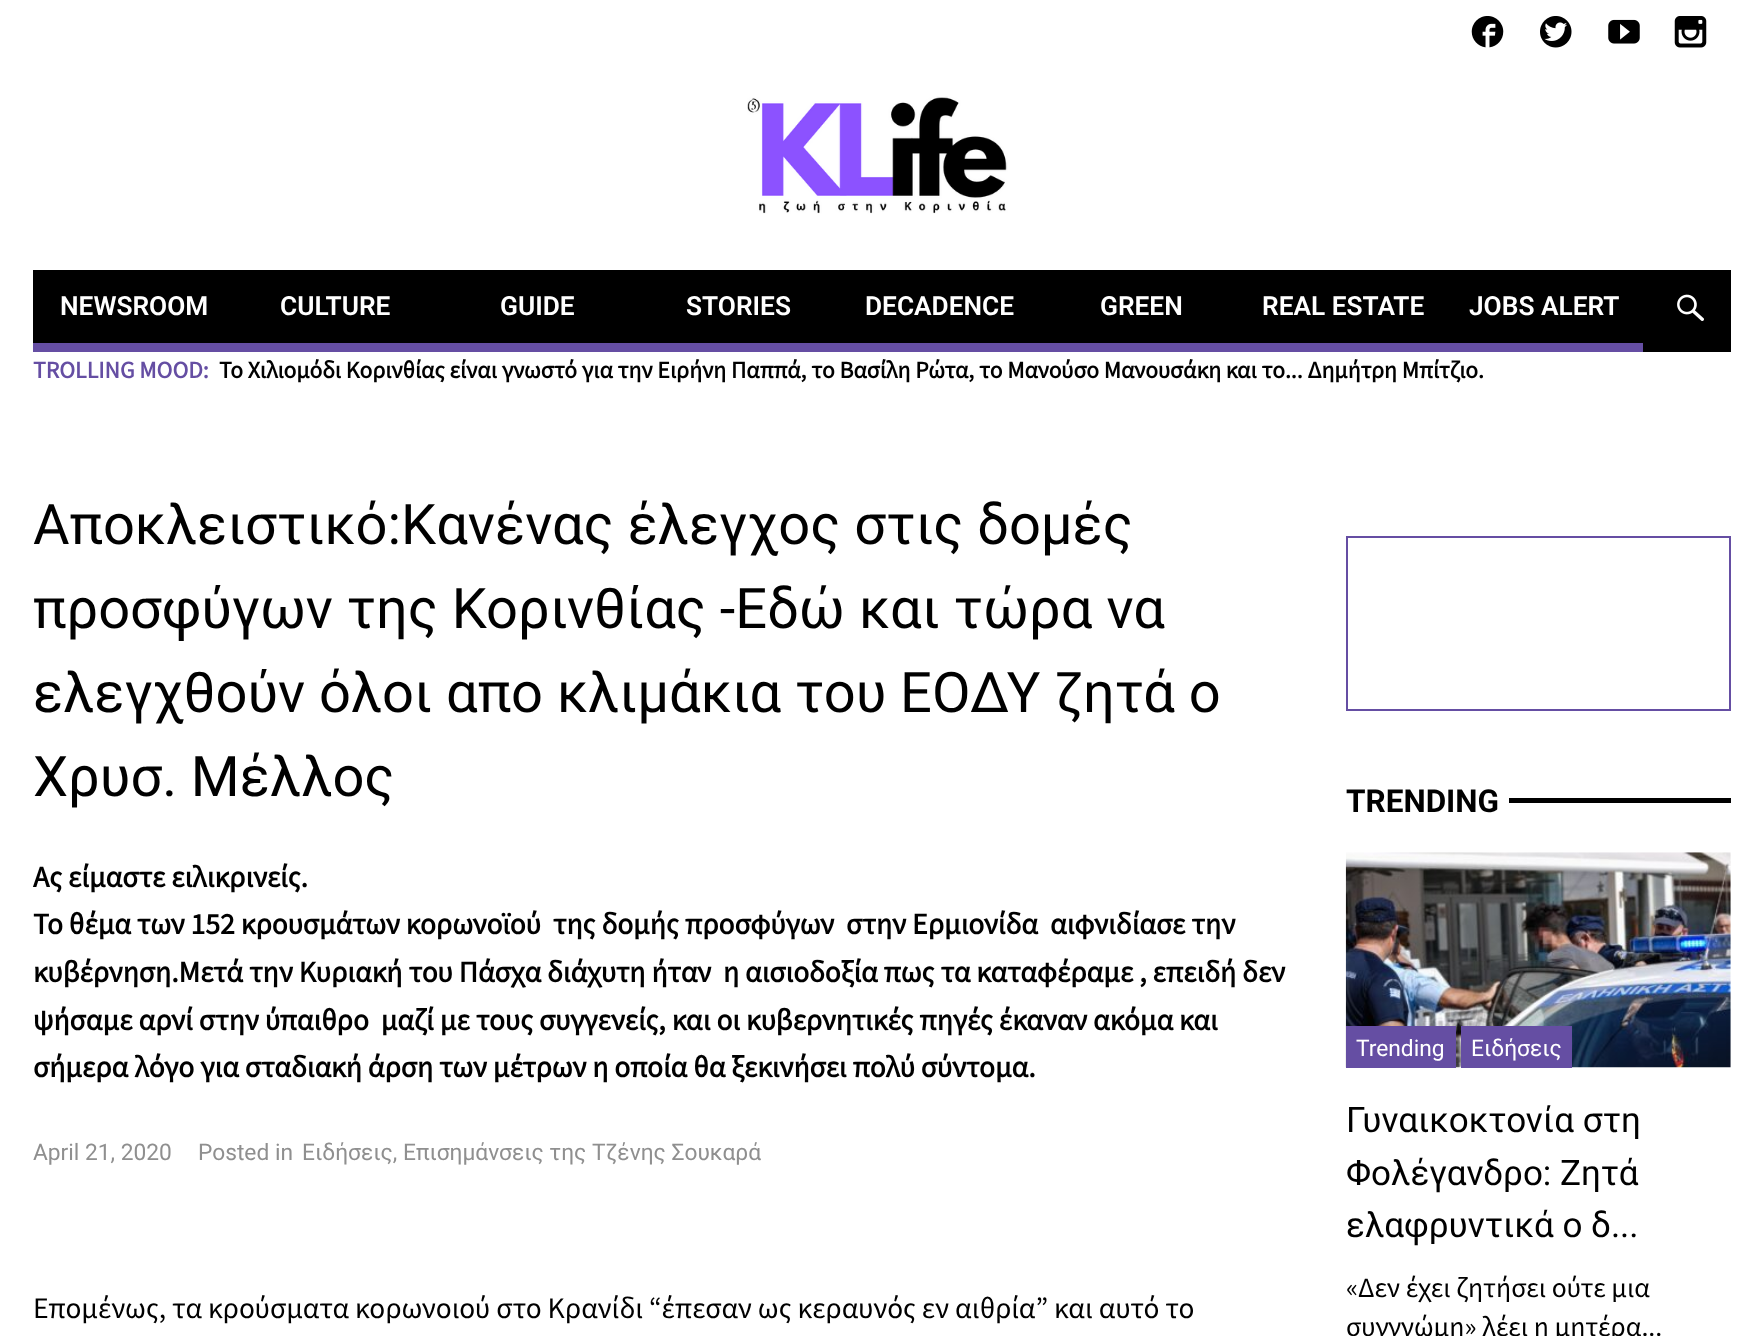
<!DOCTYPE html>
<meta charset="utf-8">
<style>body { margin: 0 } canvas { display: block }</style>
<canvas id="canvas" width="1763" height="1336"></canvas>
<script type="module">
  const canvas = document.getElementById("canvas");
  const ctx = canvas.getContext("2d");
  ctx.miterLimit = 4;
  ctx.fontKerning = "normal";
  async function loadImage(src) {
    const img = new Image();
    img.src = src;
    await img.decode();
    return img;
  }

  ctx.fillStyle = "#ffffff";
  ctx.fillRect(0, 0, 1763, 1336);
  ctx.drawImage(await loadImage("img1.png"), 1471, 16, 33, 32);
  ctx.drawImage(await loadImage("img2.png"), 1540, 16, 32, 32);
  ctx.drawImage(await loadImage("img3.png"), 1608, 19, 32, 25);
  ctx.drawImage(await loadImage("img4.png"), 1674, 16, 33, 32);
  ctx.drawImage(await loadImage("img5.png"), 747, 96, 261, 118);
  ctx.fillStyle = "#000000";
  ctx.fillRect(33, 270, 1698, 82);
  ctx.fillStyle = "#654ea3";
  ctx.fillRect(33, 343, 1610, 9);
  ctx.font = "600 26.25px Roboto";
  ctx.fillStyle = "#ffffff";
  ctx.fillText("NEWSROOM", 60, 315);
  ctx.fillText("CULTURE", 280, 315);
  ctx.fillText("GUIDE", 500, 315);
  ctx.fillText("STORIES", 686, 315);
  ctx.fillText("DECADENCE", 865, 315);
  ctx.fillText("GREEN", 1100, 315);
  ctx.fillText("REAL ESTATE", 1262, 315);
  ctx.fillText("JOBS ALERT", 1469, 315);
  ctx.drawImage(await loadImage("img6.png"), 1677, 294, 27, 27);
  ctx.font = "bold 23.8px Source Sans Pro";
  ctx.fillStyle = "#654ea3";
  ctx.fillText("TROLLING MOOD:", 33, 378);
  ctx.fillStyle = "#000000";
  ctx.fillText("Το Χιλιομόδι Κορινθίας είναι γνωστό για την Ειρήνη Παππά, το Βασίλη Ρώτα, το Μανούσο Μανουσάκη και το... Δημήτρη Μπίτζιο.", 219, 378);
  ctx.font = "56px Roboto";
  ctx.fillText("Αποκλειστικό:Kανένας έλεγχος στις δομές", 33, 544);
  ctx.fillText("προσφύγων της Κορινθίας -Εδώ και τώρα να", 33, 628);
  ctx.fillText("ελεγχθούν όλοι", 33, 712);
  ctx.fillText("απο κλιμάκια του ΕΟΔΥ ζητά ο", 446, 712);
  ctx.fillText("Χρυσ. Μέλλος", 33, 796);
  ctx.font = "bold 29.75px Source Sans Pro";
  ctx.fillText("Ας είμαστε ειλικρινείς.", 33, 887);
  ctx.fillText("Το θέμα των 152 κρουσμάτων κορωνοϊού  της δομής προσφύγων  στην Ερμιονίδα  αιφνιδίασε την", 33, 934);
  ctx.fillText("κυβέρνηση.Μετά την Κυριακή του Πάσχα διάχυτη ήταν  η αισιοδοξία πως τα καταφέραμε , επειδή δεν", 33, 982);
  ctx.fillText("ψήσαμε αρνί στην ύπαιθρο  μαζί με τους συγγενείς, και οι κυβερνητικές πηγές έκαναν ακόμα και", 33, 1030);
  ctx.fillText("σήμερα λόγο για σταδιακή άρση των μέτρων η οποία θα ξεκινήσει πολύ σύντομα.", 33, 1077);
  ctx.font = "22.75px Roboto";
  ctx.fillStyle = "#8f8f8f";
  ctx.fillText("April 21, 2020", 33, 1160);
  ctx.fillText("Posted in", 198, 1160);
  ctx.fillText("Ειδήσεις,", 302, 1160);
  ctx.fillText("Επισημάνσεις της Τζένης Σουκαρά", 403, 1160);
  ctx.font = "29.75px Source Sans Pro";
  ctx.fillStyle = "#000000";
  ctx.fillText("Επομένως, τα κρούσματα κορωνοιού στο Κρανίδι “έπεσαν ως κεραυνός εν αιθρία” και αυτό το", 33, 1318);
  ctx.strokeStyle = "#654ea3";
  ctx.lineWidth = 2;
  ctx.strokeRect(1347, 537, 383, 173);
  ctx.font = "bold 31.5px Roboto";
  ctx.fillText("TRENDING", 1346, 812);
  ctx.fillRect(1509, 798, 222, 5);
  ctx.drawImage(await loadImage("img7.png"), 1345, 852, 386, 216);
  ctx.fillStyle = "#654ea3";
  ctx.fillRect(1346, 1026, 110, 42);
  ctx.font = "22.75px Roboto";
  ctx.fillStyle = "#ffffff";
  ctx.fillText("Trending", 1356, 1056);
  ctx.fillStyle = "#654ea3";
  ctx.fillRect(1461, 1026, 111, 42);
  ctx.fillStyle = "#ffffff";
  ctx.fillText("Ειδήσεις", 1471, 1056);
  ctx.font = "35px Roboto";
  ctx.fillStyle = "#000000";
  ctx.fillText("Γυναικοκτονία στη", 1346, 1132);
  ctx.fillText("Φολέγανδρο: Ζητά", 1346, 1185);
  ctx.fillText("ελαφρυντικά ο δ...", 1346, 1237);
  ctx.font = "28px Source Sans Pro";
  ctx.fillText("«Δεν έχει ζητήσει ούτε μια", 1346, 1297);
  ctx.fillText("συγγνώμη» λέει η μητέρα...", 1346, 1336);
</script>
